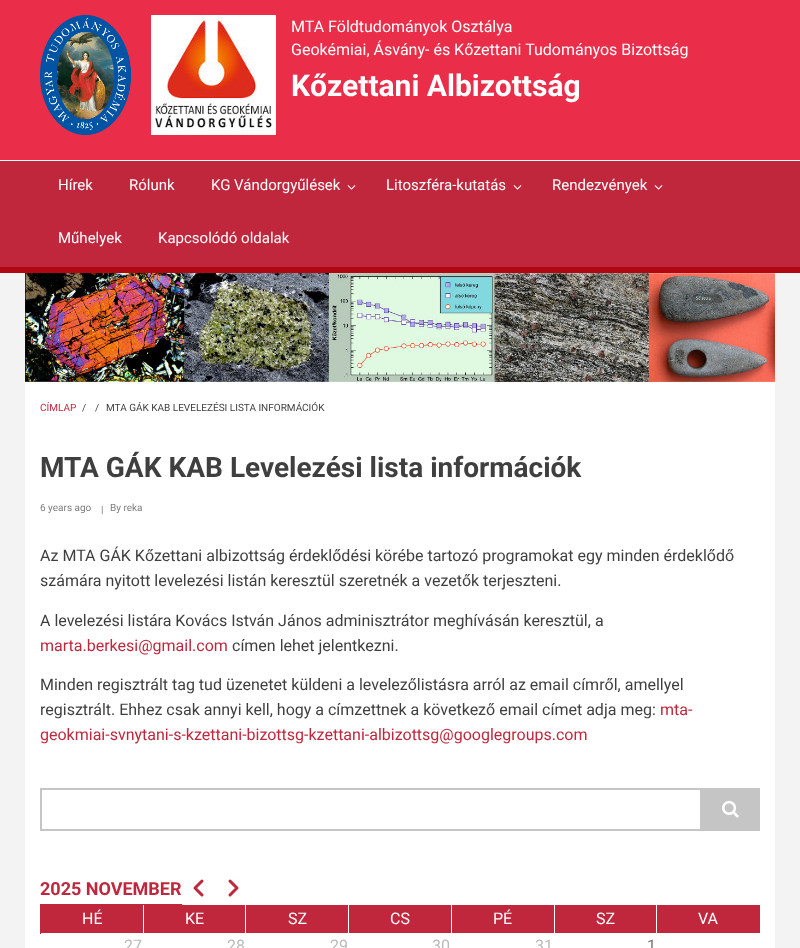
<!DOCTYPE html>
<meta charset="utf-8">
<style>body { margin: 0 } canvas { display: block }</style>
<canvas id="canvas" width="800" height="948"></canvas>
<script type="module">
  const canvas = document.getElementById("canvas");
  const ctx = canvas.getContext("2d");
  ctx.miterLimit = 4;
  ctx.fontKerning = "normal";
  async function loadImage(src) {
    const img = new Image();
    img.src = src;
    await img.decode();
    return img;
  }

  ctx.fillStyle = "#f3f3f3";
  ctx.fillRect(0, 0, 800, 948);
  ctx.fillStyle = "#ea2d49";
  ctx.fillRect(0, 0, 800, 160);
  ctx.fillStyle = "#ffffff";
  ctx.fillRect(0, 160, 800, 1);
  ctx.drawImage(await loadImage("img1.png"), 40, 15, 91, 120);
  ctx.drawImage(await loadImage("img2.png"), 151, 15, 125, 120);
  ctx.font = "16px Roboto";
  ctx.fillText("MTA Földtudományok Osztálya", 291, 32);
  ctx.fillText("Geokémiai, Ásvány- és Kőzettani Tudományos Bizottság", 291, 55);
  ctx.font = "bold 30px Roboto";
  ctx.fillText("Kőzettani Albizottság", 291, 96);
  ctx.fillStyle = "#c0273c";
  ctx.fillRect(0, 161, 800, 106);
  ctx.fillStyle = "#b00711";
  ctx.fillRect(0, 267, 800, 6);
  ctx.font = "15px Roboto";
  ctx.fillStyle = "#ffffff";
  ctx.fillText("Hírek", 58, 190);
  ctx.fillText("Rólunk", 129, 190);
  ctx.fillText("KG Vándorgyűlések", 211, 190);
  ctx.drawImage(await loadImage("img3.png"), 347, 185, 9, 5);
  ctx.fillText("Litoszféra-kutatás", 386, 190);
  ctx.drawImage(await loadImage("img3.png"), 513, 185, 9, 5);
  ctx.fillText("Rendezvények", 552, 190);
  ctx.drawImage(await loadImage("img3.png"), 654, 185, 9, 5);
  ctx.fillText("Műhelyek", 58, 243);
  ctx.fillText("Kapcsolódó oldalak", 158, 243);
  ctx.drawImage(await loadImage("img4.png"), 25, 273, 750, 109);
  ctx.fillRect(25, 382, 750, 566);
  ctx.font = "10px Roboto";
  ctx.fillStyle = "#c0273c";
  ctx.fillText("CÍMLAP", 40, 411);
  ctx.fillStyle = "#3f3f3f";
  ctx.fillText("/", 82, 411);
  ctx.fillText("/", 95, 411);
  ctx.fillText("MTA GÁK KAB LEVELEZÉSI LISTA INFORMÁCIÓK", 106, 411);
  ctx.font = "bold 28px Roboto";
  ctx.fillText("MTA GÁK KAB Levelezési lista információk", 40, 477);
  ctx.font = "10px Roboto";
  ctx.fillStyle = "#7d7d7d";
  ctx.fillText("6 years ago", 40, 511);
  ctx.fillText("|", 101, 513);
  ctx.fillText("By reka", 110, 511);
  ctx.font = "16px Roboto";
  ctx.fillStyle = "#3f3f3f";
  ctx.fillText("Az MTA GÁK Kőzettani albizottság érdeklődési körébe tartozó programokat egy minden érdeklődő", 40, 561);
  ctx.fillText("számára nyitott levelezési listán keresztül szeretnék a vezetők terjeszteni.", 40, 586);
  ctx.fillText("A levelezési listára Kovács István János adminisztrátor meghívásán keresztül, a", 40, 626);
  ctx.fillStyle = "#c0273c";
  ctx.fillText("marta.berkesi@gmail.com", 40, 651);
  ctx.fillStyle = "#3f3f3f";
  ctx.fillText("címen lehet jelentkezni.", 232, 651);
  ctx.fillText("Minden regisztrált tag tud üzenetet küldeni a levelezőlistásra arról az email címről, amellyel", 40, 690);
  ctx.fillText("regisztrált. Ehhez csak annyi kell, hogy a címzettnek a következő email címet adja meg:", 40, 715);
  ctx.fillStyle = "#c0273c";
  ctx.fillText("mta-", 660, 715);
  ctx.fillText("geokmiai-svnytani-s-kzettani-bizottsg-kzettani-albizottsg@googlegroups.com", 40, 740);
  ctx.strokeStyle = "#c5c5c5";
  ctx.lineWidth = 2;
  ctx.strokeRect(41, 789, 718, 41);
  ctx.fillStyle = "#c5c5c5";
  ctx.fillRect(700, 790, 58, 39);
  ctx.drawImage(await loadImage("img5.png"), 722, 800, 17, 18);
  ctx.fillStyle = "#c0273c";
  ctx.fillRect(40, 904, 142, 1);
  ctx.font = "bold 18px Roboto";
  ctx.fillText("2025 NOVEMBER", 40, 895);
  ctx.beginPath();
  ctx.moveTo(202, 895);
  ctx.lineTo(195, 888);
  ctx.lineTo(202, 881);
  ctx.moveTo(230, 881);
  ctx.lineTo(237, 888);
  ctx.lineTo(230, 895);
  ctx.strokeStyle = "#c0273c";
  ctx.lineWidth = 3;
  ctx.lineCap = "round";
  ctx.lineJoin = "round";
  ctx.stroke();
  ctx.fillRect(41, 906, 102, 27);
  ctx.fillRect(40, 905, 720, 1);
  ctx.fillStyle = "#ffffff";
  ctx.fillRect(143, 905, 1, 1);
  ctx.fillStyle = "#c0273c";
  ctx.fillRect(40, 905, 1, 29);
  ctx.font = "16px Roboto";
  ctx.fillStyle = "#ffffff";
  ctx.fillText("HÉ", 82, 924);
  ctx.fillStyle = "#c0273c";
  ctx.fillRect(144, 906, 101, 27);
  ctx.fillStyle = "#ffffff";
  ctx.fillRect(245, 905, 1, 1);
  ctx.fillText("KE", 185, 924);
  ctx.fillStyle = "#c0273c";
  ctx.fillRect(246, 906, 102, 27);
  ctx.fillStyle = "#ffffff";
  ctx.fillRect(348, 905, 1, 1);
  ctx.fillText("SZ", 288, 924);
  ctx.fillStyle = "#c0273c";
  ctx.fillRect(349, 906, 102, 27);
  ctx.fillStyle = "#ffffff";
  ctx.fillRect(451, 905, 1, 1);
  ctx.fillText("CS", 390, 924);
  ctx.fillStyle = "#c0273c";
  ctx.fillRect(452, 906, 102, 27);
  ctx.fillStyle = "#ffffff";
  ctx.fillRect(554, 905, 1, 1);
  ctx.fillText("PÉ", 493, 924);
  ctx.fillStyle = "#c0273c";
  ctx.fillRect(555, 906, 101, 27);
  ctx.fillStyle = "#ffffff";
  ctx.fillRect(656, 905, 1, 1);
  ctx.fillText("SZ", 596, 924);
  ctx.fillStyle = "#c0273c";
  ctx.fillRect(657, 906, 103, 27);
  ctx.fillStyle = "#ffffff";
  ctx.fillText("VA", 698, 924);
  ctx.fillStyle = "#bbbbbb";
  ctx.fillText("27", 124, 951);
  ctx.fillText("28", 227, 951);
  ctx.fillText("29", 330, 951);
  ctx.fillText("30", 432, 951);
  ctx.fillText("31", 535, 951);
  ctx.fillStyle = "#777777";
  ctx.fillText("1", 647, 951);
</script>
